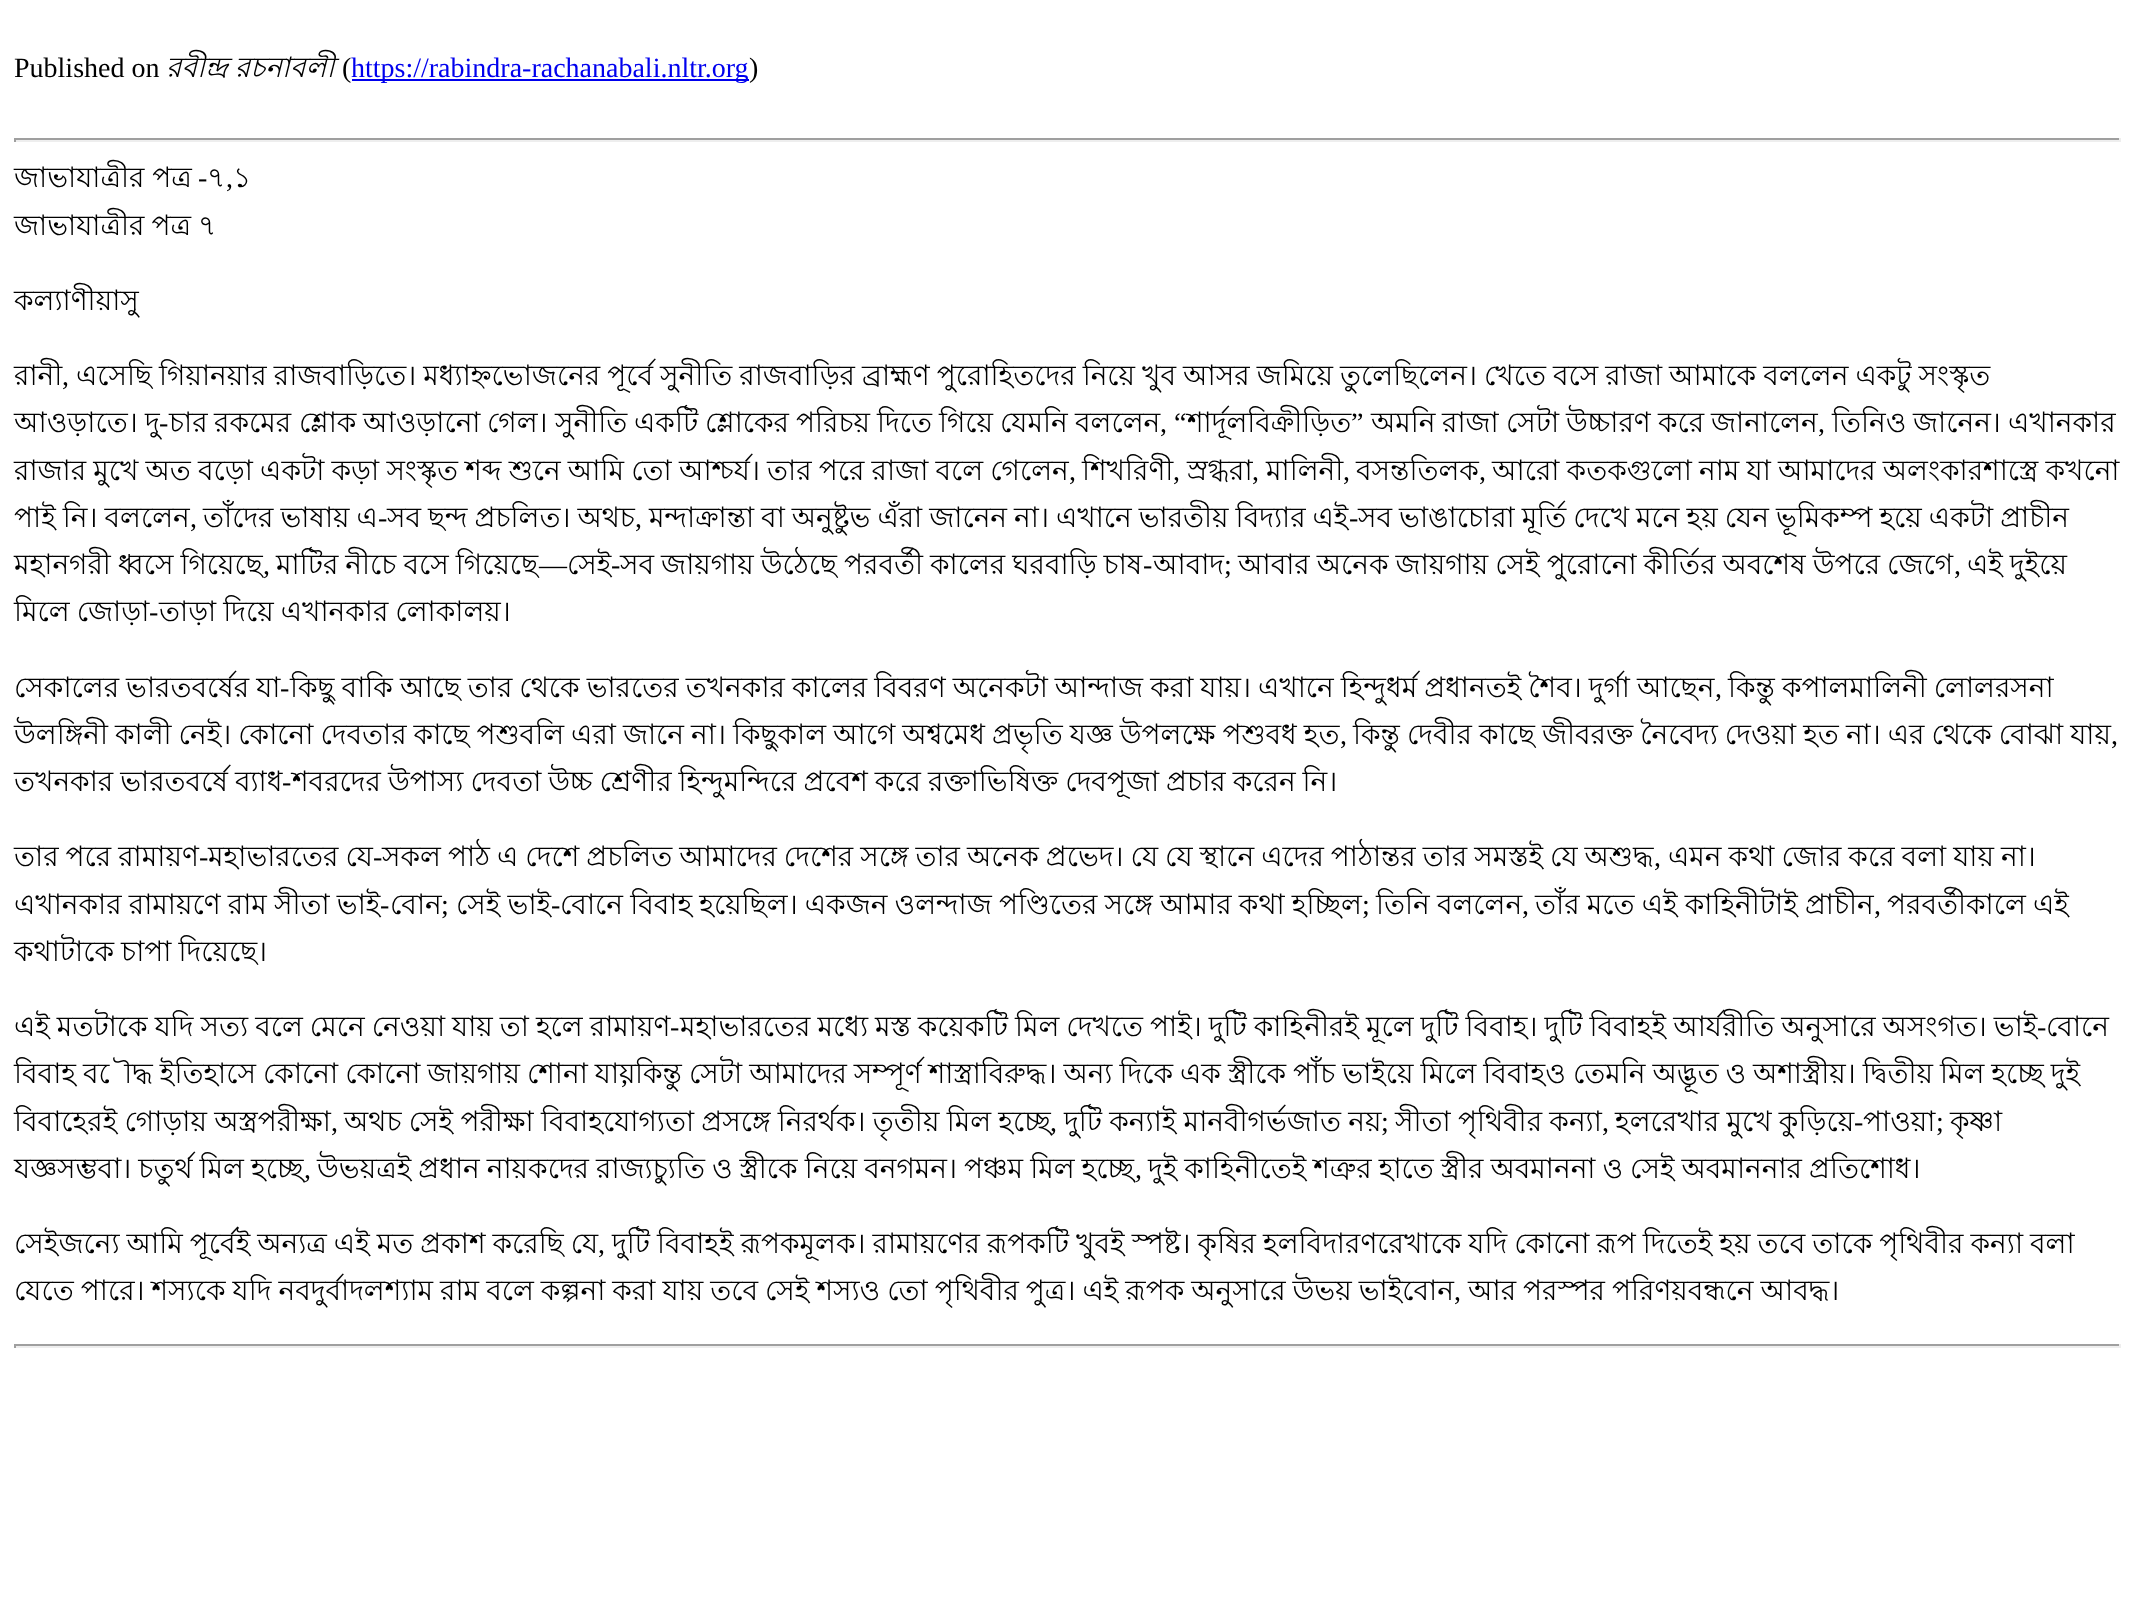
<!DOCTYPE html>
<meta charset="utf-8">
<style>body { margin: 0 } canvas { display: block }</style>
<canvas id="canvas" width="2135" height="1609"></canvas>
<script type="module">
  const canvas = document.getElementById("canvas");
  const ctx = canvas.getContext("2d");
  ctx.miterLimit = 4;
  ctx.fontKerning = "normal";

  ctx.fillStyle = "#ffffff";
  ctx.fillRect(0, 0, 2135, 1609);
  ctx.font = "28px Liberation Serif";
  ctx.fillStyle = "#000000";
  ctx.fillText("Published on", 14, 77);
  ctx.wordSpacing = "-0.75px";
  ctx.font = "italic 28px Lohit Bengali";
  ctx.fillText("রবীন্দ্র রচনাবলী", 166, 77);
  ctx.wordSpacing = "0px";
  ctx.font = "28px Liberation Serif";
  ctx.fillText("(", 342, 77);
  ctx.fillStyle = "#0000ee";
  ctx.fillRect(352, 79, 397, 2);
  ctx.fillText("https://rabindra-rachanabali.nltr.org", 351, 77);
  ctx.fillStyle = "#000000";
  ctx.fillText(")", 749, 77);
  ctx.fillStyle = "#9f9f9f";
  ctx.fillRect(14, 138, 2107, 2);
  ctx.fillStyle = "#eeeeee";
  ctx.fillRect(2119, 138, 2, 4);
  ctx.fillRect(14, 140, 2107, 2);
  ctx.fillStyle = "#9f9f9f";
  ctx.fillRect(14, 138, 2, 4);
  ctx.font = "28px Lohit Bengali";
  ctx.fillStyle = "#000000";
  ctx.fillText("জাভাযাত্রীর পত্র", 14, 187);
  ctx.font = "28px Liberation Serif";
  ctx.fillText("-", 198, 187);
  ctx.font = "28px Lohit Bengali";
  ctx.fillText("৭", 207, 187);
  ctx.fillText("১", 233, 187);
  ctx.font = "28px Liberation Serif";
  ctx.fillText(",", 226, 187);
  ctx.wordSpacing = "-0.75px";
  ctx.font = "28px Lohit Bengali";
  ctx.fillText("জাভাযাত্রীর পত্র ৭", 14, 235);
  ctx.wordSpacing = "0px";
  ctx.fillText("কল্যাণীয়াসু", 14, 310);
  ctx.fillText("রানী", 14, 385);
  ctx.font = "28px Liberation Serif";
  ctx.fillText(",", 62, 385);
  ctx.wordSpacing = "-0.75px";
  ctx.font = "28px Lohit Bengali";
  ctx.fillText("এসেছি গিয়ানয়ার রাজবাড়িতে। মধ্যাহ্নভোজনের পূর্বে সুনীতি রাজবাড়ির ব্রাহ্মণ পুরোহিতদের নিয়ে খুব আসর জমিয়ে তুলেছিলেন। খেতে বসে রাজা আমাকে বললেন একটু সংস্কৃত", 76, 385);
  ctx.wordSpacing = "0px";
  ctx.fillText("আওড়াতে।", 14, 432);
  ctx.fillText("দু", 145, 432);
  ctx.font = "28px Liberation Serif";
  ctx.fillText("-", 159, 432);
  ctx.font = "28px Lohit Bengali";
  ctx.fillText("চার", 169, 432);
  ctx.fillText("রকমের", 214, 432);
  ctx.fillText("শ্লোক", 299, 432);
  ctx.fillText("আওড়ানো", 363, 432);
  ctx.fillText("গেল।", 487, 432);
  ctx.fillText("সুনীতি", 555, 432);
  ctx.fillText("একটি", 634, 432);
  ctx.fillText("শ্লোকের", 705, 432);
  ctx.fillText("পরিচয়", 796, 432);
  ctx.fillText("দিতে", 877, 432);
  ctx.fillText("গিয়ে", 939, 432);
  ctx.fillText("যেমনি", 1000, 432);
  ctx.fillText("বললেন", 1075, 432);
  ctx.font = "28px Liberation Serif";
  ctx.fillText(", “", 1160, 432);
  ctx.font = "28px Lohit Bengali";
  ctx.fillText("শার্দূলবিক্রীড়িত", 1187, 432);
  ctx.font = "28px Liberation Serif";
  ctx.fillText("”", 1351, 432);
  ctx.font = "28px Lohit Bengali";
  ctx.fillText("অমনি", 1371, 432);
  ctx.fillText("রাজা", 1442, 432);
  ctx.fillText("সেটা", 1506, 432);
  ctx.fillText("উচ্চারণ", 1566, 432);
  ctx.fillText("করে", 1658, 432);
  ctx.fillText("জানালেন", 1711, 432);
  ctx.fillText("তিনিও", 1832, 432);
  ctx.fillText("জানেন।", 1913, 432);
  ctx.fillText("এখানকার", 2008, 432);
  ctx.font = "28px Liberation Serif";
  ctx.fillText(",", 1818, 432);
  ctx.wordSpacing = "-0.6px";
  ctx.font = "28px Lohit Bengali";
  ctx.fillText("রাজার মুখে অত বড়ো একটা কড়া সংস্কৃত শব্দ শুনে আমি তো আশ্চর্য। তার পরে রাজা বলে গেলেন", 14, 480);
  ctx.wordSpacing = "0px";
  ctx.font = "28px Liberation Serif";
  ctx.fillText(",", 1069, 480);
  ctx.font = "28px Lohit Bengali";
  ctx.fillText("শিখরিণী", 1082, 480);
  ctx.font = "28px Liberation Serif";
  ctx.fillText(",", 1173, 480);
  ctx.font = "28px Lohit Bengali";
  ctx.fillText("স্রগ্ধরা", 1187, 480);
  ctx.font = "28px Liberation Serif";
  ctx.fillText(",", 1252, 480);
  ctx.font = "28px Lohit Bengali";
  ctx.fillText("মালিনী", 1266, 480);
  ctx.font = "28px Liberation Serif";
  ctx.fillText(",", 1343, 480);
  ctx.font = "28px Lohit Bengali";
  ctx.fillText("বসন্ততিলক", 1356, 480);
  ctx.font = "28px Liberation Serif";
  ctx.fillText(",", 1479, 480);
  ctx.wordSpacing = "-0.6px";
  ctx.font = "28px Lohit Bengali";
  ctx.fillText("আরো কতকগুলো নাম যা আমাদের অলংকারশাস্ত্রে কখনো", 1492, 480);
  ctx.wordSpacing = "-0.75px";
  ctx.fillText("পাই নি। বললেন", 14, 527);
  ctx.wordSpacing = "0px";
  ctx.font = "28px Liberation Serif";
  ctx.fillText(",", 190, 527);
  ctx.wordSpacing = "-0.75px";
  ctx.font = "28px Lohit Bengali";
  ctx.fillText("তাঁদের ভাষায় এ", 203, 527);
  ctx.wordSpacing = "0px";
  ctx.font = "28px Liberation Serif";
  ctx.fillText("-", 378, 527);
  ctx.wordSpacing = "-0.75px";
  ctx.font = "28px Lohit Bengali";
  ctx.fillText("সব ছন্দ প্রচলিত। অথচ", 387, 527);
  ctx.fillText("মন্দাক্রান্তা বা অনুষ্টুভ এঁরা জানেন না। এখানে ভারতীয় বিদ্যার এই", 649, 527);
  ctx.wordSpacing = "0px";
  ctx.font = "28px Liberation Serif";
  ctx.fillText("-", 1349, 527);
  ctx.wordSpacing = "-0.75px";
  ctx.font = "28px Lohit Bengali";
  ctx.fillText("সব ভাঙাচোরা মূর্তি দেখে মনে হয় যেন ভূমিকম্প হয়ে একটা প্রাচীন", 1358, 527);
  ctx.wordSpacing = "0px";
  ctx.font = "28px Liberation Serif";
  ctx.fillText(",", 635, 527);
  ctx.wordSpacing = "-0.75px";
  ctx.font = "28px Lohit Bengali";
  ctx.fillText("মহানগরী ধ্বসে গিয়েছে", 14, 574);
  ctx.fillText("মাটির নীচে বসে গিয়েছে", 276, 574);
  ctx.wordSpacing = "0px";
  ctx.font = "28px Liberation Serif";
  ctx.fillText("—", 539, 574);
  ctx.font = "28px Lohit Bengali";
  ctx.fillText("সেই", 567, 574);
  ctx.font = "28px Liberation Serif";
  ctx.fillText("-", 611, 574);
  ctx.wordSpacing = "-0.75px";
  ctx.font = "28px Lohit Bengali";
  ctx.fillText("সব জায়গায় উঠেছে পরবর্তী কালের ঘরবাড়ি চাষ", 620, 574);
  ctx.wordSpacing = "0px";
  ctx.font = "28px Liberation Serif";
  ctx.fillText("-", 1143, 574);
  ctx.font = "28px Lohit Bengali";
  ctx.fillText("আবাদ", 1153, 574);
  ctx.font = "28px Liberation Serif";
  ctx.fillText(";", 1224, 574);
  ctx.wordSpacing = "-0.75px";
  ctx.font = "28px Lohit Bengali";
  ctx.fillText("আবার অনেক জায়গায় সেই পুরোনো কীর্তির অবশেষ উপরে জেগে", 1238, 574);
  ctx.fillText("এই দুইয়ে", 1967, 574);
  ctx.wordSpacing = "0px";
  ctx.font = "28px Liberation Serif";
  ctx.fillText(",", 263, 574);
  ctx.fillText(",", 1954, 574);
  ctx.wordSpacing = "-0.75px";
  ctx.font = "28px Lohit Bengali";
  ctx.fillText("মিলে জোড়া", 14, 621);
  ctx.wordSpacing = "0px";
  ctx.font = "28px Liberation Serif";
  ctx.fillText("-", 149, 621);
  ctx.wordSpacing = "-0.75px";
  ctx.font = "28px Lohit Bengali";
  ctx.fillText("তাড়া দিয়ে এখানকার লোকালয়।", 159, 621);
  ctx.fillText("সেকালের ভারতবর্ষের যা", 14, 697);
  ctx.wordSpacing = "0px";
  ctx.font = "28px Liberation Serif";
  ctx.fillText("-", 280, 697);
  ctx.wordSpacing = "-0.75px";
  ctx.font = "28px Lohit Bengali";
  ctx.fillText("কিছু বাকি আছে তার থেকে ভারতের তখনকার কালের বিবরণ অনেকটা আন্দাজ করা যায়। এখানে হিন্দুধর্ম প্রধানতই শৈব। দুর্গা আছেন", 290, 697);
  ctx.fillText("কিন্তু কপালমালিনী লোলরসনা", 1728, 697);
  ctx.wordSpacing = "0px";
  ctx.font = "28px Liberation Serif";
  ctx.fillText(",", 1715, 697);
  ctx.wordSpacing = "-0.75px";
  ctx.font = "28px Lohit Bengali";
  ctx.fillText("উলঙ্গিনী কালী নেই। কোনো দেবতার কাছে পশুবলি এরা জানে না। কিছুকাল আগে অশ্বমেধ প্রভৃতি যজ্ঞ উপলক্ষে পশুবধ হত", 14, 744);
  ctx.wordSpacing = "0px";
  ctx.font = "28px Liberation Serif";
  ctx.fillText(",", 1340, 744);
  ctx.wordSpacing = "-0.75px";
  ctx.font = "28px Lohit Bengali";
  ctx.fillText("কিন্তু দেবীর কাছে জীবরক্ত নৈবেদ্য দেওয়া হত না। এর থেকে বোঝা যায়", 1353, 744);
  ctx.wordSpacing = "0px";
  ctx.font = "28px Liberation Serif";
  ctx.fillText(",", 2111, 744);
  ctx.wordSpacing = "-0.75px";
  ctx.font = "28px Lohit Bengali";
  ctx.fillText("তখনকার ভারতবর্ষে ব্যাধ", 14, 791);
  ctx.wordSpacing = "0px";
  ctx.font = "28px Liberation Serif";
  ctx.fillText("-", 282, 791);
  ctx.wordSpacing = "-0.75px";
  ctx.font = "28px Lohit Bengali";
  ctx.fillText("শবরদের উপাস্য দেবতা উচ্চ শ্রেণীর হিন্দুমন্দিরে প্রবেশ করে রক্তাভিষিক্ত দেবপূজা প্রচার করেন নি।", 292, 791);
  ctx.fillText("তার পরে রামায়ণ", 14, 866);
  ctx.wordSpacing = "0px";
  ctx.font = "28px Liberation Serif";
  ctx.fillText("-", 199, 866);
  ctx.wordSpacing = "-0.75px";
  ctx.font = "28px Lohit Bengali";
  ctx.fillText("মহাভারতের যে", 208, 866);
  ctx.wordSpacing = "0px";
  ctx.font = "28px Liberation Serif";
  ctx.fillText("-", 373, 866);
  ctx.wordSpacing = "-0.75px";
  ctx.font = "28px Lohit Bengali";
  ctx.fillText("সকল পাঠ এ দেশে প্রচলিত আমাদের দেশের সঙ্গে তার অনেক প্রভেদ। যে যে স্থানে এদের পাঠান্তর তার সমস্তই যে অশুদ্ধ", 382, 866);
  ctx.fillText("এমন কথা জোর করে বলা যায় না।", 1668, 866);
  ctx.wordSpacing = "0px";
  ctx.font = "28px Liberation Serif";
  ctx.fillText(",", 1654, 866);
  ctx.wordSpacing = "-0.6px";
  ctx.font = "28px Lohit Bengali";
  ctx.fillText("এখানকার রামায়ণে রাম সীতা ভাই", 14, 914);
  ctx.wordSpacing = "0px";
  ctx.font = "28px Liberation Serif";
  ctx.fillText("-", 380, 914);
  ctx.font = "28px Lohit Bengali";
  ctx.fillText("বোন", 390, 914);
  ctx.font = "28px Liberation Serif";
  ctx.fillText(";", 441, 914);
  ctx.wordSpacing = "-0.6px";
  ctx.font = "28px Lohit Bengali";
  ctx.fillText("সেই ভাই", 456, 914);
  ctx.wordSpacing = "0px";
  ctx.font = "28px Liberation Serif";
  ctx.fillText("-", 551, 914);
  ctx.wordSpacing = "-0.6px";
  ctx.font = "28px Lohit Bengali";
  ctx.fillText("বোনে বিবাহ হয়েছিল। একজন ওলন্দাজ পণ্ডিতের সঙ্গে আমার কথা হচ্ছিল", 560, 914);
  ctx.wordSpacing = "0px";
  ctx.font = "28px Liberation Serif";
  ctx.fillText(";", 1362, 914);
  ctx.wordSpacing = "-0.6px";
  ctx.font = "28px Lohit Bengali";
  ctx.fillText("তিনি বললেন", 1376, 914);
  ctx.wordSpacing = "0px";
  ctx.font = "28px Liberation Serif";
  ctx.fillText(",", 1522, 914);
  ctx.wordSpacing = "-0.6px";
  ctx.font = "28px Lohit Bengali";
  ctx.fillText("তাঁর মতে এই কাহিনীটাই প্রাচীন", 1535, 914);
  ctx.fillText("পরবর্তীকালে এই", 1887, 914);
  ctx.wordSpacing = "0px";
  ctx.font = "28px Liberation Serif";
  ctx.fillText(",", 1874, 914);
  ctx.wordSpacing = "-0.75px";
  ctx.font = "28px Lohit Bengali";
  ctx.fillText("কথাটাকে চাপা দিয়েছে।", 14, 961);
  ctx.fillText("এই মতটাকে যদি সত্য বলে মেনে নেওয়া যায় তা হলে রামায়ণ", 14, 1036);
  ctx.wordSpacing = "0px";
  ctx.font = "28px Liberation Serif";
  ctx.fillText("-", 670, 1036);
  ctx.wordSpacing = "-0.75px";
  ctx.font = "28px Lohit Bengali";
  ctx.fillText("মহাভারতের মধ্যে মস্ত কয়েকটি মিল দেখতে পাই। দুটি কাহিনীরই মূলে দুটি বিবাহ। দুটি বিবাহই আর্যরীতি অনুসারে অসংগত। ভাই", 680, 1036);
  ctx.wordSpacing = "0px";
  ctx.font = "28px Liberation Serif";
  ctx.fillText("-", 2037, 1036);
  ctx.font = "28px Lohit Bengali";
  ctx.fillText("বোনে", 2046, 1036);
  ctx.wordSpacing = "-0.75px";
  ctx.fillText("বিবাহ বৌদ্ধ ইতিহাসে কোনো কোনো জায়গায় শোনা যায়", 14, 1083);
  ctx.wordSpacing = "0px";
  ctx.font = "28px Liberation Serif";
  ctx.fillText(",", 621, 1083);
  ctx.wordSpacing = "-0.75px";
  ctx.font = "28px Lohit Bengali";
  ctx.fillText("কিন্তু সেটা আমাদের সম্পূর্ণ শাস্ত্রাবিরুদ্ধ। অন্য দিকে এক স্ত্রীকে পাঁচ ভাইয়ে মিলে বিবাহও তেমনি অদ্ভূত ও অশাস্ত্রীয়। দ্বিতীয় মিল হচ্ছে দুই", 635, 1083);
  ctx.wordSpacing = "-0.5px";
  ctx.fillText("বিবাহেরই গোড়ায় অস্ত্রপরীক্ষা", 14, 1131);
  ctx.fillText("অথচ সেই পরীক্ষা বিবাহযোগ্যতা প্রসঙ্গে নিরর্থক। তৃতীয় মিল হচ্ছে", 344, 1131);
  ctx.wordSpacing = "0px";
  ctx.font = "28px Liberation Serif";
  ctx.fillText(",", 1050, 1131);
  ctx.wordSpacing = "-0.5px";
  ctx.font = "28px Lohit Bengali";
  ctx.fillText("দুটি কন্যাই মানবীগর্ভজাত নয়", 1064, 1131);
  ctx.wordSpacing = "0px";
  ctx.font = "28px Liberation Serif";
  ctx.fillText(";", 1381, 1131);
  ctx.wordSpacing = "-0.5px";
  ctx.font = "28px Lohit Bengali";
  ctx.fillText("সীতা পৃথিবীর কন্যা", 1395, 1131);
  ctx.fillText("হলরেখার মুখে কুড়িয়ে", 1615, 1131);
  ctx.wordSpacing = "0px";
  ctx.fillText("পাওয়া", 1863, 1131);
  ctx.font = "28px Liberation Serif";
  ctx.fillText(";", 1936, 1131);
  ctx.font = "28px Lohit Bengali";
  ctx.fillText("কৃষ্ণা", 1950, 1131);
  ctx.font = "28px Liberation Serif";
  ctx.fillText("-", 1854, 1131);
  ctx.fillText(",", 331, 1131);
  ctx.fillText(",", 1602, 1131);
  ctx.wordSpacing = "-0.75px";
  ctx.font = "28px Lohit Bengali";
  ctx.fillText("যজ্ঞসম্ভবা। চতুর্থ মিল হচ্ছে", 14, 1178);
  ctx.wordSpacing = "0px";
  ctx.font = "28px Liberation Serif";
  ctx.fillText(",", 304, 1178);
  ctx.wordSpacing = "-0.75px";
  ctx.font = "28px Lohit Bengali";
  ctx.fillText("উভয়ত্রই প্রধান নায়কদের রাজ্যচ্যুতি ও স্ত্রীকে নিয়ে বনগমন। পঞ্চম মিল হচ্ছে", 317, 1178);
  ctx.wordSpacing = "0px";
  ctx.font = "28px Liberation Serif";
  ctx.fillText(",", 1135, 1178);
  ctx.wordSpacing = "-0.75px";
  ctx.font = "28px Lohit Bengali";
  ctx.fillText("দুই কাহিনীতেই শত্রুর হাতে স্ত্রীর অবমাননা ও সেই অবমাননার প্রতিশোধ।", 1148, 1178);
  ctx.fillText("সেইজন্যে আমি পূর্বেই অন্যত্র এই মত প্রকাশ করেছি যে", 14, 1253);
  ctx.wordSpacing = "0px";
  ctx.font = "28px Liberation Serif";
  ctx.fillText(",", 598, 1253);
  ctx.wordSpacing = "-0.75px";
  ctx.font = "28px Lohit Bengali";
  ctx.fillText("দুটি বিবাহই রূপকমূলক। রামায়ণের রূপকটি খুবই স্পষ্ট। কৃষির হলবিদারণরেখাকে যদি কোনো রূপ দিতেই হয় তবে তাকে পৃথিবীর কন্যা বলা", 612, 1253);
  ctx.fillText("যেতে পারে। শস্যকে যদি নবদুর্বাদলশ্যাম রাম বলে কল্পনা করা যায় তবে সেই শস্যও তো পৃথিবীর পুত্র। এই রূপক অনুসারে উভয় ভাইবোন", 14, 1300);
  ctx.wordSpacing = "0px";
  ctx.font = "28px Liberation Serif";
  ctx.fillText(",", 1454, 1300);
  ctx.wordSpacing = "-0.75px";
  ctx.font = "28px Lohit Bengali";
  ctx.fillText("আর পরস্পর পরিণয়বন্ধনে আবদ্ধ।", 1468, 1300);
  ctx.fillStyle = "#9f9f9f";
  ctx.fillRect(14, 1344, 2107, 2);
  ctx.fillStyle = "#eeeeee";
  ctx.fillRect(2119, 1344, 2, 4);
  ctx.fillRect(14, 1346, 2107, 2);
  ctx.fillStyle = "#9f9f9f";
  ctx.fillRect(14, 1344, 2, 4);
</script>
